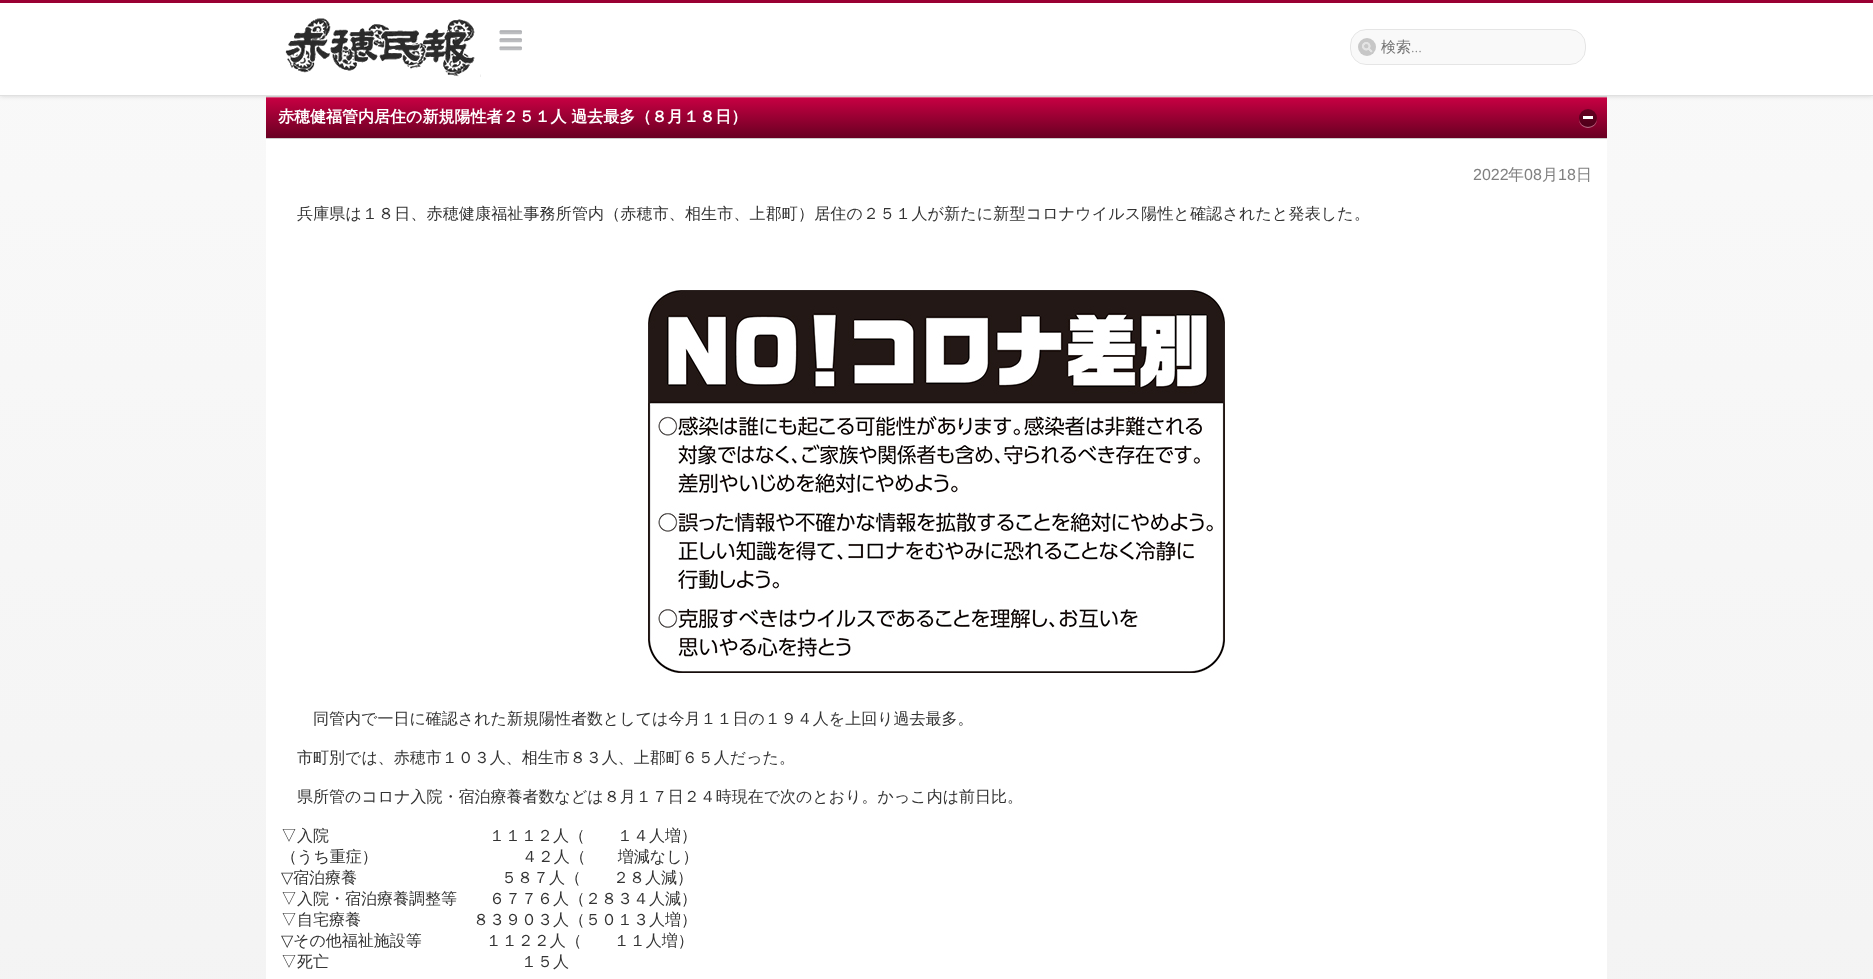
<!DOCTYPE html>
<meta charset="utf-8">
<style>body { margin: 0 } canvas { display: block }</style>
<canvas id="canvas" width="1873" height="979"></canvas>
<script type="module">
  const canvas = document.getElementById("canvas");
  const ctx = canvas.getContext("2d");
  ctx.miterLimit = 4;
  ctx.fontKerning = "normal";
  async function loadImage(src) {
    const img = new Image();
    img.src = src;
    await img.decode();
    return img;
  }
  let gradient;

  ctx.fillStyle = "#ffffff";
  ctx.fillRect(0, 0, 1873, 979);
  gradient = ctx.createLinearGradient(936, 0, 937, 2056);
  gradient.addColorStop(0, "#f9f9f9");
  gradient.addColorStop(1, "#eeeeee");
  ctx.fillStyle = gradient;
  ctx.fillRect(0, 96, 1873, 883);
  ctx.fillStyle = "rgba(0, 0, 0, 0.15)";
  ctx.filter = "blur(2.5px)";
  ctx.beginPath();
  ctx.rect(0, 0, 1873, 96);
  ctx.fill();
  ctx.filter = "none";
  ctx.fillStyle = "#ffffff";
  ctx.fillRect(0, 3, 1873, 92);
  ctx.fillStyle = "#990033";
  ctx.fillRect(0, 0, 1873, 3);
  ctx.fillStyle = "#e0e0e0";
  ctx.fillRect(0, 95, 1873, 1);
  ctx.drawImage(await loadImage("img1.png"), 285, 18, 196, 59);
  ctx.drawImage(await loadImage("img2.png"), 499, 30, 23, 21);
  ctx.fillStyle = "#f9f9f9";
  ctx.beginPath();
  ctx.roundRect(1351, 30, 234, 34, 15);
  ctx.fill();
  ctx.beginPath();
  ctx.roundRect(1350.5, 29.5, 235, 35, 15.5);
  ctx.strokeStyle = "rgba(0, 0, 0, 0.1)";
  ctx.stroke();
  ctx.fillStyle = "#c7c7c7";
  ctx.beginPath();
  ctx.arc(1367, 47, 9, 0, Math.PI * 2);
  ctx.fill();
  ctx.drawImage(await loadImage("img3.png"), 1362, 42, 11, 11);
  ctx.font = "500 15px WenQuanYi Zen Hei";
  ctx.fillStyle = "#757575";
  ctx.fillText("検索", 1381, 52);
  ctx.font = "300 15px Open Sans";
  ctx.fillText("...", 1411, 52);
  gradient = ctx.createLinearGradient(937, 97, 937, 138);
  gradient.addColorStop(0, "#c90043");
  gradient.addColorStop(1, "#680022");
  ctx.fillStyle = gradient;
  ctx.fillRect(266, 98, 1341, 40);
  ctx.fillStyle = "#cccccc";
  ctx.fillRect(266, 96, 1341, 1);
  ctx.fillRect(266, 138, 1341, 1);
  ctx.fillStyle = "#d94d7b";
  ctx.fillRect(266, 97, 1341, 1);
  ctx.font = "bold 16px WenQuanYi Zen Hei";
  ctx.fillStyle = "#ffffff";
  ctx.fillText("赤穂健福管内居住の新規陽性者２５１人 過去最多（８月１８日）", 278, 122);
  ctx.fillStyle = "rgba(255, 255, 255, 0.4)";
  ctx.beginPath();
  ctx.moveTo(1597, 118.5);
  ctx.bezierCurveTo(1596.5, 129.5, 1579.5, 129.5, 1579, 118.5);
  ctx.bezierCurveTo(1578.5, 131, 1597.5, 131, 1597, 118.5);
  ctx.closePath();
  ctx.fill();
  ctx.fillStyle = "rgba(0, 0, 0, 0.4)";
  ctx.beginPath();
  ctx.arc(1588, 118, 9, 0, Math.PI * 2);
  ctx.fill();
  ctx.fillStyle = "#ffffff";
  ctx.fillRect(1583, 116, 10, 3);
  ctx.fillRect(266, 139, 1341, 840);
  ctx.font = "16px Liberation Sans";
  ctx.fillStyle = "#808080";
  ctx.fillText("2022", 1473, 180);
  ctx.font = "500 16px WenQuanYi Zen Hei";
  ctx.fillText("年", 1508, 180);
  ctx.font = "16px Liberation Sans";
  ctx.fillText("08", 1524, 180);
  ctx.font = "500 16px WenQuanYi Zen Hei";
  ctx.fillText("月", 1542, 180);
  ctx.font = "16px Liberation Sans";
  ctx.fillText("18", 1558, 180);
  ctx.font = "500 16px WenQuanYi Zen Hei";
  ctx.fillText("日", 1576, 180);
  ctx.letterSpacing = "0.15px";
  ctx.fillStyle = "#333333";
  ctx.fillText("兵庫県は１８日、赤穂健康福祉事務所管内（赤穂市、相生市、上郡町）居住の２５１人が新たに新型コロナウイルス陽性と確認されたと発表した。", 297, 219);
  ctx.drawImage(await loadImage("img4.png"), 648, 290, 577, 383);
  ctx.letterSpacing = "0px";
  ctx.fillText("同管内で一日に確認された新規陽性者数としては今月１１日の１９４人を上回り過去最多。", 313, 724);
  ctx.fillText("市町別では、赤穂市１０３人、相生市８３人、上郡町６５人だった。", 297, 763);
  ctx.fillText("県所管のコロナ入院・宿泊療養者数などは８月１７日２４時現在で次のとおり。かっこ内は前日比。", 297, 802);
  ctx.fillText("▽入院　　　　　　　　　　１１１２人（　　１４人増）", 281, 841);
  ctx.fillText("（うち重症）　　　　　　　　　４２人（　　増減なし）", 281, 862);
  ctx.font = "16px DejaVu Sans";
  ctx.fillText("▽", 281, 883);
  ctx.font = "500 16px WenQuanYi Zen Hei";
  ctx.fillText("宿泊療養　　　　　　　　　５８７人（　　２８人減）", 293, 883);
  ctx.fillText("▽入院・宿泊療養調整等　　６７７６人（２８３４人減）", 281, 904);
  ctx.fillText("▽自宅療養　　　　　　　８３９０３人（５０１３人増）", 281, 925);
  ctx.font = "16px DejaVu Sans";
  ctx.fillText("▽", 281, 946);
  ctx.font = "500 16px WenQuanYi Zen Hei";
  ctx.fillText("その他福祉施設等　　　　１１２２人（　　１１人増）", 293, 946);
  ctx.fillText("▽死亡　　　　　　　　　　　　１５人", 281, 967);
</script>
